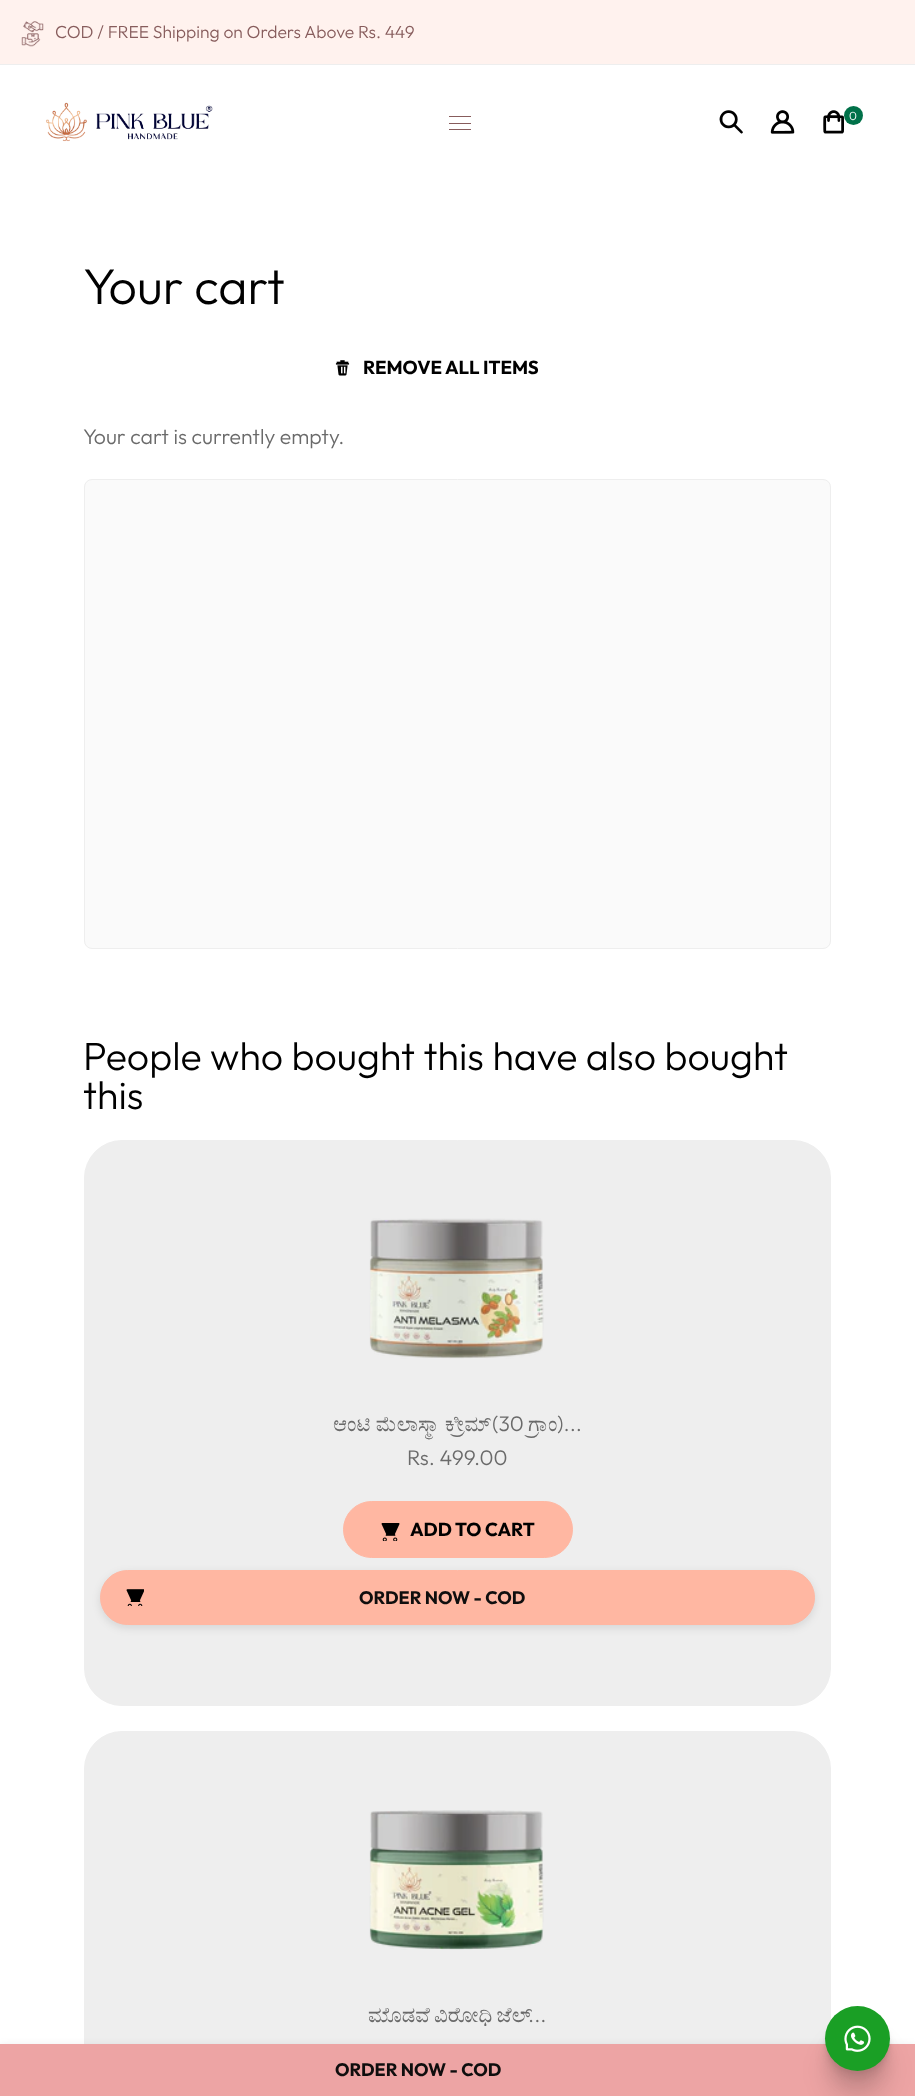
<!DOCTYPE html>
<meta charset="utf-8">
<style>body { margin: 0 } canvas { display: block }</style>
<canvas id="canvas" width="915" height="2096"></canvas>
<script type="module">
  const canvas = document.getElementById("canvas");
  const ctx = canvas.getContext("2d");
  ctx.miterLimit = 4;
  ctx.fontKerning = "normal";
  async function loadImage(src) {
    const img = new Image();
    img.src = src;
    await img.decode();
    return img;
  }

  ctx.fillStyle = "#ffffff";
  ctx.fillRect(0, 0, 915, 2096);
  ctx.fillStyle = "#fff2ee";
  ctx.fillRect(0, 0, 915, 64);
  ctx.fillStyle = "#eeeeee";
  ctx.fillRect(0, 64, 915, 1);
  ctx.drawImage(await loadImage("img1.png"), 21, 21, 23, 26);
  ctx.font = "300 17.5px Outfit";
  ctx.fillStyle = "#875c5c";
  ctx.fillText("COD / FREE Shipping on Orders Above Rs. 449", 55, 38);
  ctx.drawImage(await loadImage("img2.png"), 46, 102, 167, 40);
  ctx.fillRect(449, 123, 22, 1);
  ctx.fillRect(449, 116, 22, 1);
  ctx.fillRect(449, 129, 22, 1);
  ctx.drawImage(await loadImage("img3.png"), 719, 110, 24, 24);
  ctx.drawImage(await loadImage("img4.png"), 770, 110, 25, 24);
  ctx.drawImage(await loadImage("img5.png"), 823, 110, 21, 24);
  ctx.fillStyle = "#007149";
  ctx.beginPath();
  ctx.arc(853.5, 115.5, 9.5, 0, Math.PI * 2);
  ctx.fill();
  ctx.font = "300 12px Outfit";
  ctx.fillStyle = "#ffffff";
  ctx.fillText("0", 849, 120);
  ctx.font = "300 50px Outfit";
  ctx.fillStyle = "#000000";
  ctx.fillText("Your cart", 83, 304);
  ctx.drawImage(await loadImage("img6.png"), 335, 360, 15, 16);
  ctx.font = "bold 18.75px Outfit";
  ctx.fillText("REMOVE", 363, 374);
  ctx.fillText("ALL ITEMS", 445, 374);
  ctx.font = "300 21.25px Outfit";
  ctx.fillStyle = "#6a6a6a";
  ctx.fillText("Your cart is currently empty.", 83, 444);
  ctx.fillStyle = "#fafafa";
  ctx.beginPath();
  ctx.roundRect(84.5, 479.5, 746, 469, 7.5);
  ctx.fill();
  ctx.strokeStyle = "#eeeeee";
  ctx.stroke();
  ctx.font = "300 39.3px Outfit";
  ctx.fillStyle = "#000000";
  ctx.fillText("People who bought this have also bought", 83, 1070);
  ctx.fillText("this", 83, 1109);
  ctx.fillStyle = "#eeeeee";
  ctx.beginPath();
  ctx.roundRect(84.5, 1140.5, 746, 565, 37.5);
  ctx.fill();
  ctx.stroke();
  ctx.drawImage(await loadImage("img7.png"), 369, 1218, 175, 141);
  ctx.font = "21.25px FreeSerif";
  ctx.fillStyle = "#6a6a6a";
  ctx.fillText("ಆಂಟಿ ಮೆಲಾಸ್ಮಾ ಕ್ರೀಮ್", 333, 1431);
  ctx.font = "300 21.25px Outfit";
  ctx.fillText("(30", 492, 1431);
  ctx.font = "21.25px FreeSerif";
  ctx.fillText("ಗ್ರಾಂ", 528, 1431);
  ctx.font = "300 21.25px Outfit";
  ctx.fillText(")...", 557, 1431);
  ctx.fillText("Rs. 499.00", 407, 1465);
  ctx.fillStyle = "#ffb7a2";
  ctx.beginPath();
  ctx.roundRect(343.5, 1501.5, 229, 56, 28);
  ctx.fill();
  ctx.strokeStyle = "#ffb7a2";
  ctx.stroke();
  ctx.drawImage(await loadImage("img8.png"), 381, 1523, 19, 18);
  ctx.font = "bold 18.75px Outfit";
  ctx.fillStyle = "#000000";
  ctx.fillText("ADD TO CART", 410, 1536);
  ctx.fillStyle = "rgba(0, 0, 0, 0.1)";
  ctx.filter = "blur(4.5px)";
  ctx.beginPath();
  ctx.roundRect(100, 1573, 715, 55, 27.5);
  ctx.fill();
  ctx.filter = "none";
  ctx.fillStyle = "#ffb7a2";
  ctx.beginPath();
  ctx.roundRect(100.5, 1570.5, 714, 54, 27);
  ctx.fill();
  ctx.stroke();
  ctx.drawImage(await loadImage("img9.png"), 126, 1589, 18, 17);
  ctx.font = "bold 18px Outfit";
  ctx.fillStyle = "#0f0e0e";
  ctx.fillText("ORDER NOW - COD", 359, 1604);
  ctx.fillStyle = "#eeeeee";
  ctx.beginPath();
  ctx.roundRect(84.5, 1731.5, 746, 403, 37.5);
  ctx.fill();
  ctx.strokeStyle = "#eeeeee";
  ctx.stroke();
  ctx.drawImage(await loadImage("img10.png"), 369, 1810, 175, 140);
  ctx.wordSpacing = "-1px";
  ctx.font = "21.25px FreeSerif";
  ctx.fillStyle = "#6a6a6a";
  ctx.fillText("ಮೊಡವೆ ವಿರೋಧಿ ಜೆಲ್", 368, 2022);
  ctx.wordSpacing = "0px";
  ctx.font = "300 21.25px Outfit";
  ctx.fillText("...", 528, 2022);
  ctx.fillStyle = "rgba(0, 0, 0, 0.1)";
  ctx.filter = "blur(4.5px)";
  ctx.beginPath();
  ctx.rect(0, 2046, 915, 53);
  ctx.fill();
  ctx.filter = "none";
  ctx.fillStyle = "#eda4a4";
  ctx.fillRect(0, 2044, 915, 52);
  ctx.font = "bold 18px Outfit";
  ctx.fillStyle = "#0f0e0e";
  ctx.fillText("ORDER NOW - COD", 335, 2076);
  ctx.fillStyle = "rgba(0, 0, 0, 0.1)";
  ctx.filter = "blur(12.5px)";
  ctx.beginPath();
  ctx.roundRect(825, 2038, 65, 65, 32.5);
  ctx.fill();
  ctx.filter = "none";
  ctx.fillStyle = "rgba(0, 0, 0, 0.06)";
  ctx.filter = "blur(6px)";
  ctx.beginPath();
  ctx.roundRect(825, 2023, 65, 65, 32.5);
  ctx.fill();
  ctx.filter = "none";
  ctx.filter = "blur(2.5px)";
  ctx.beginPath();
  ctx.roundRect(825, 2014, 65, 65, 32.5);
  ctx.fill();
  ctx.filter = "none";
  ctx.fillStyle = "rgba(0, 0, 0, 0.04)";
  ctx.filter = "blur(1px)";
  ctx.beginPath();
  ctx.roundRect(825, 2009, 65, 65, 32.5);
  ctx.fill();
  ctx.filter = "none";
  ctx.fillStyle = "#1a9f25";
  ctx.beginPath();
  ctx.arc(857.5, 2038.5, 32.5, 0, Math.PI * 2);
  ctx.fill();
  ctx.drawImage(await loadImage("img11.png"), 844, 2025, 27, 27);
</script>
